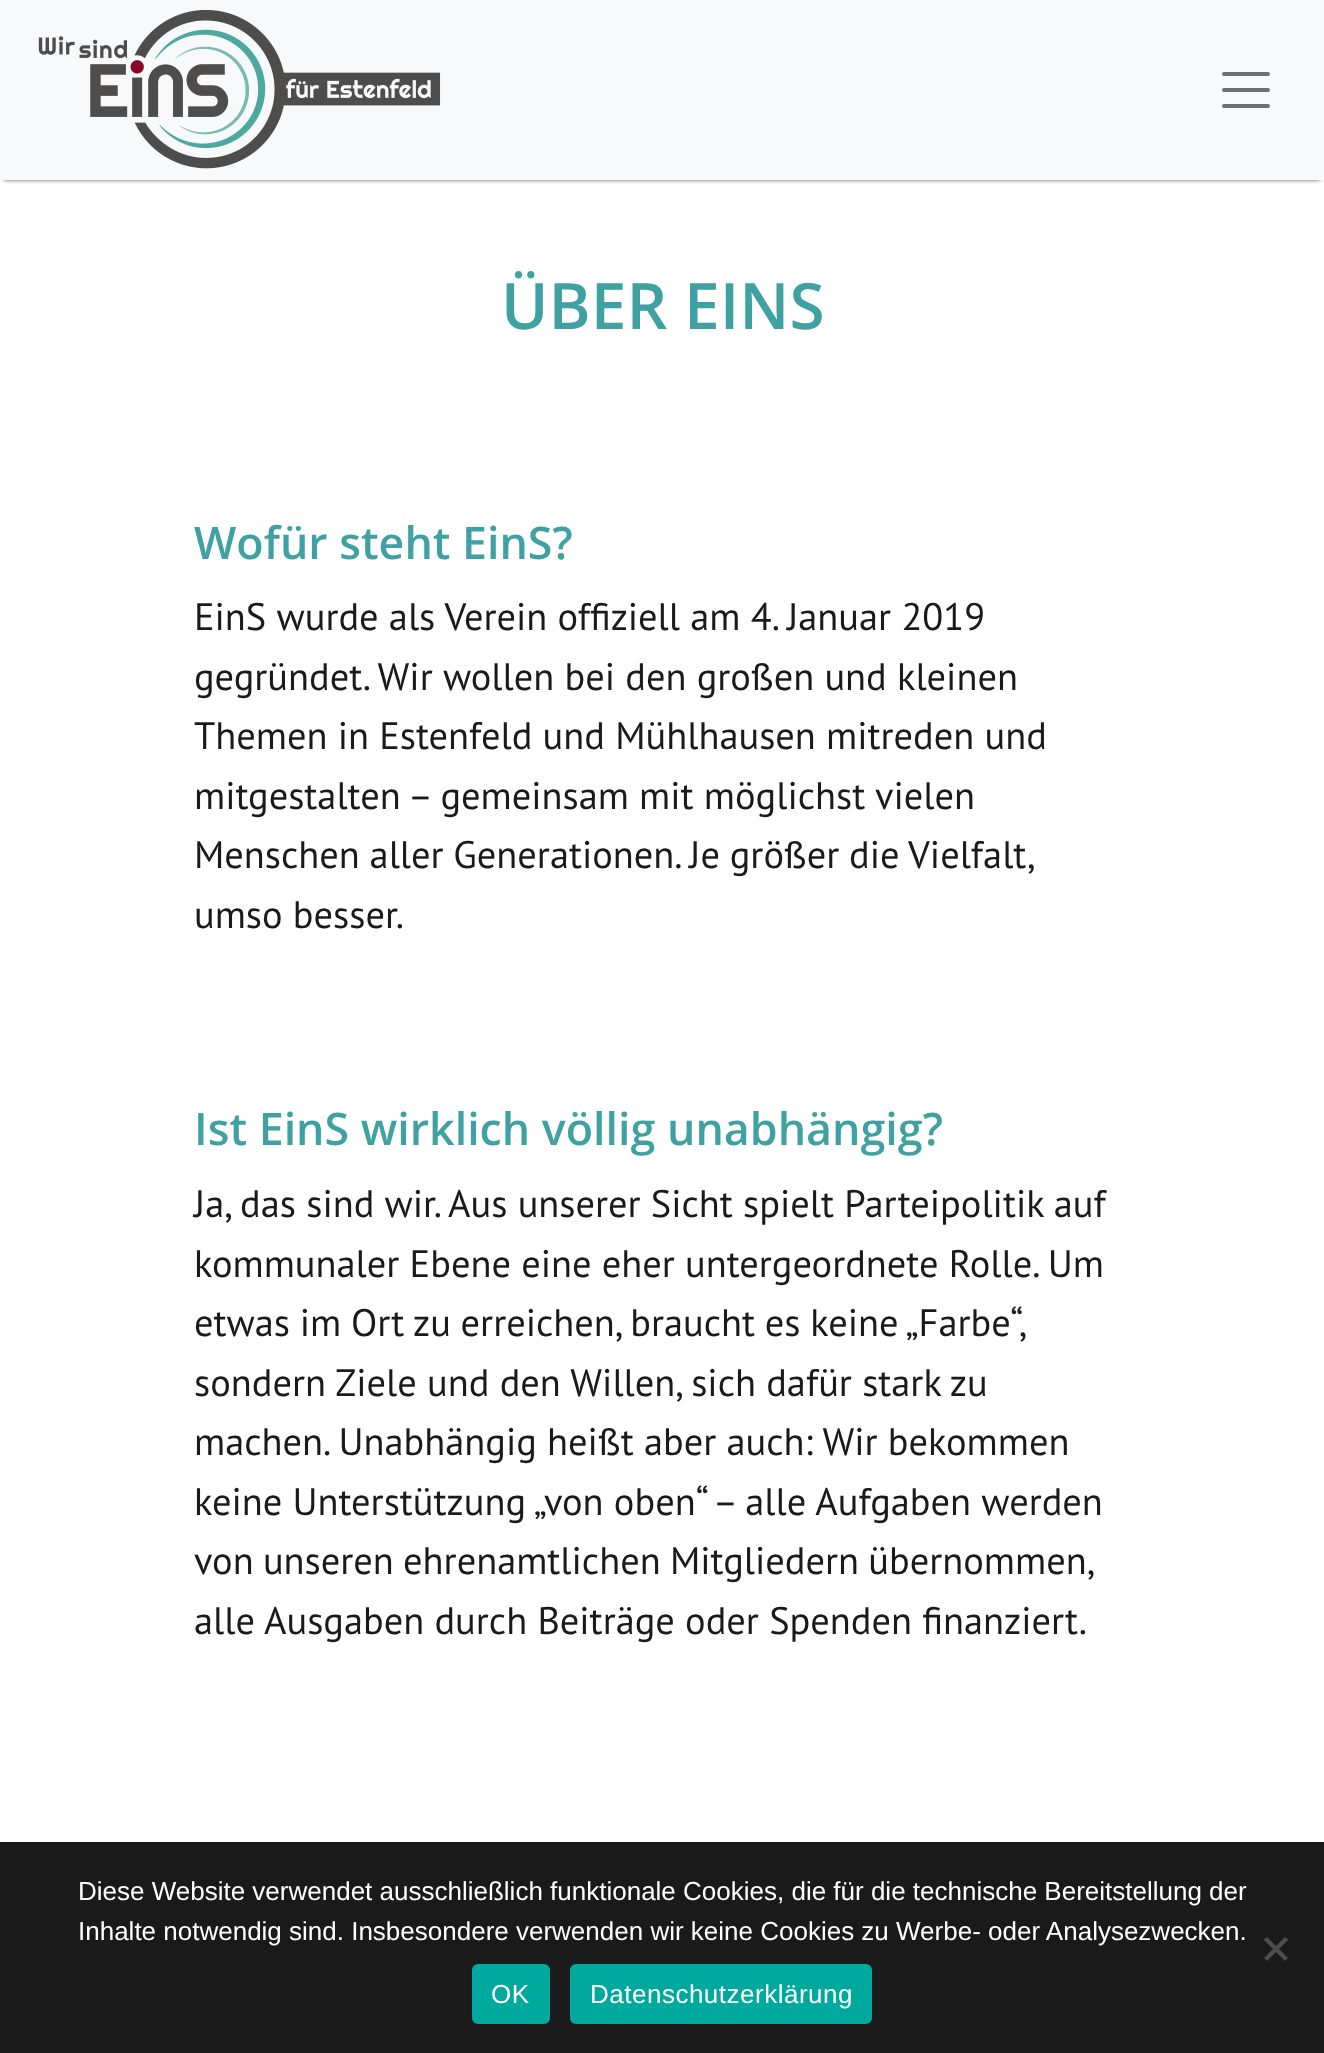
<!DOCTYPE html>
<meta charset="utf-8">
<style>body { margin: 0 } canvas { display: block }</style>
<canvas id="canvas" width="1324" height="2053"></canvas>
<script type="module">
  const canvas = document.getElementById("canvas");
  const ctx = canvas.getContext("2d");
  ctx.miterLimit = 4;
  ctx.fontKerning = "normal";
  async function loadImage(src) {
    const img = new Image();
    img.src = src;
    await img.decode();
    return img;
  }

  ctx.fillStyle = "#ffffff";
  ctx.fillRect(0, 0, 1324, 2053);
  ctx.fillStyle = "#565656";
  ctx.filter = "blur(2px)";
  ctx.beginPath();
  ctx.rect(4, 8, 1316, 172);
  ctx.fill();
  ctx.filter = "none";
  ctx.fillStyle = "#f8f9fa";
  ctx.fillRect(0, 0, 1324, 180);
  ctx.drawImage(await loadImage("img1.png"), 38, 10, 403, 159);
  ctx.beginPath();
  ctx.moveTo(1224, 74);
  ctx.lineTo(1268, 74);
  ctx.moveTo(1224, 90);
  ctx.lineTo(1268, 90);
  ctx.moveTo(1224, 106);
  ctx.lineTo(1268, 106);
  ctx.strokeStyle = "#707071";
  ctx.lineWidth = 4;
  ctx.lineCap = "round";
  ctx.stroke();
  ctx.font = "600 64px Open Sans";
  ctx.fillStyle = "#3fa1a1";
  ctx.fillText("ÜBER EINS", 501, 329);
  ctx.font = "600 44.75px Open Sans";
  ctx.fillText("Wofür steht EinS?", 194, 559);
  ctx.font = "38.4px PT Sans";
  ctx.fillStyle = "#1a1a1a";
  ctx.fillText("EinS wurde als Verein offiziell am 4. Januar 2019", 194, 630);
  ctx.fillText("gegründet. Wir wollen bei den großen und kleinen", 194, 690);
  ctx.fillText("Themen in Estenfeld und Mühlhausen mitreden und", 194, 749);
  ctx.fillText("mitgestalten – gemeinsam mit möglichst vielen", 194, 809);
  ctx.wordSpacing = "-0.5px";
  ctx.fillText("Menschen aller Generationen. Je größer die Vielfalt,", 194, 868);
  ctx.wordSpacing = "0px";
  ctx.fillText("umso besser.", 194, 928);
  ctx.font = "600 44.75px Open Sans";
  ctx.fillStyle = "#3fa1a1";
  ctx.fillText("Ist EinS wirklich völlig unabhängig?", 194, 1145);
  ctx.font = "38.4px PT Sans";
  ctx.fillStyle = "#1a1a1a";
  ctx.fillText("Ja, das sind wir. Aus unserer Sicht spielt Parteipolitik auf", 194, 1217);
  ctx.fillText("kommunaler Ebene eine eher untergeordnete Rolle. Um", 194, 1277);
  ctx.wordSpacing = "-0.5px";
  ctx.fillText("etwas im Ort zu erreichen, braucht es keine „Farbe“,", 194, 1336);
  ctx.wordSpacing = "0px";
  ctx.fillText("sondern Ziele und den Willen, sich dafür stark zu", 194, 1396);
  ctx.fillText("machen. Unabhängig heißt aber auch: Wir bekommen", 194, 1455);
  ctx.fillText("keine Unterstützung „von oben“ – alle Aufgaben werden", 194, 1515);
  ctx.wordSpacing = "-1px";
  ctx.fillText("von unseren ehrenamtlichen Mitgliedern übernommen,", 194, 1574);
  ctx.wordSpacing = "0px";
  ctx.fillText("alle Ausgaben durch Beiträge oder Spenden finanziert.", 194, 1634);
  ctx.fillRect(0, 1842, 1324, 211);
  ctx.font = "26px Liberation Sans";
  ctx.fillStyle = "#ffffff";
  ctx.fillText("Diese Website verwendet ausschließlich funktionale Cookies, die für die technische Bereitstellung der", 78, 1900);
  ctx.fillText("Inhalte notwendig sind. Insbesondere verwenden wir keine Cookies zu Werbe- oder Analysezwecken.", 78, 1940);
  ctx.fillStyle = "#4d4d4d";
  ctx.beginPath();
  ctx.moveTo(1285, 1937);
  ctx.lineTo(1288, 1940);
  ctx.lineTo(1267, 1961);
  ctx.lineTo(1264, 1958);
  ctx.closePath();
  ctx.fill();
  ctx.beginPath();
  ctx.moveTo(1264, 1940);
  ctx.lineTo(1267, 1937);
  ctx.lineTo(1288, 1958);
  ctx.lineTo(1285, 1961);
  ctx.closePath();
  ctx.fill();
  ctx.fillStyle = "#00a99d";
  ctx.beginPath();
  ctx.roundRect(472, 1964, 78, 60, 6);
  ctx.fill();
  ctx.letterSpacing = "0.5px";
  ctx.fillStyle = "#ffffff";
  ctx.fillText("OK", 491, 2003);
  ctx.fillStyle = "#00a99d";
  ctx.beginPath();
  ctx.roundRect(570, 1964, 302, 60, 6);
  ctx.fill();
  ctx.fillStyle = "#ffffff";
  ctx.fillText("Datenschutzerklärung", 590, 2003);
</script>
